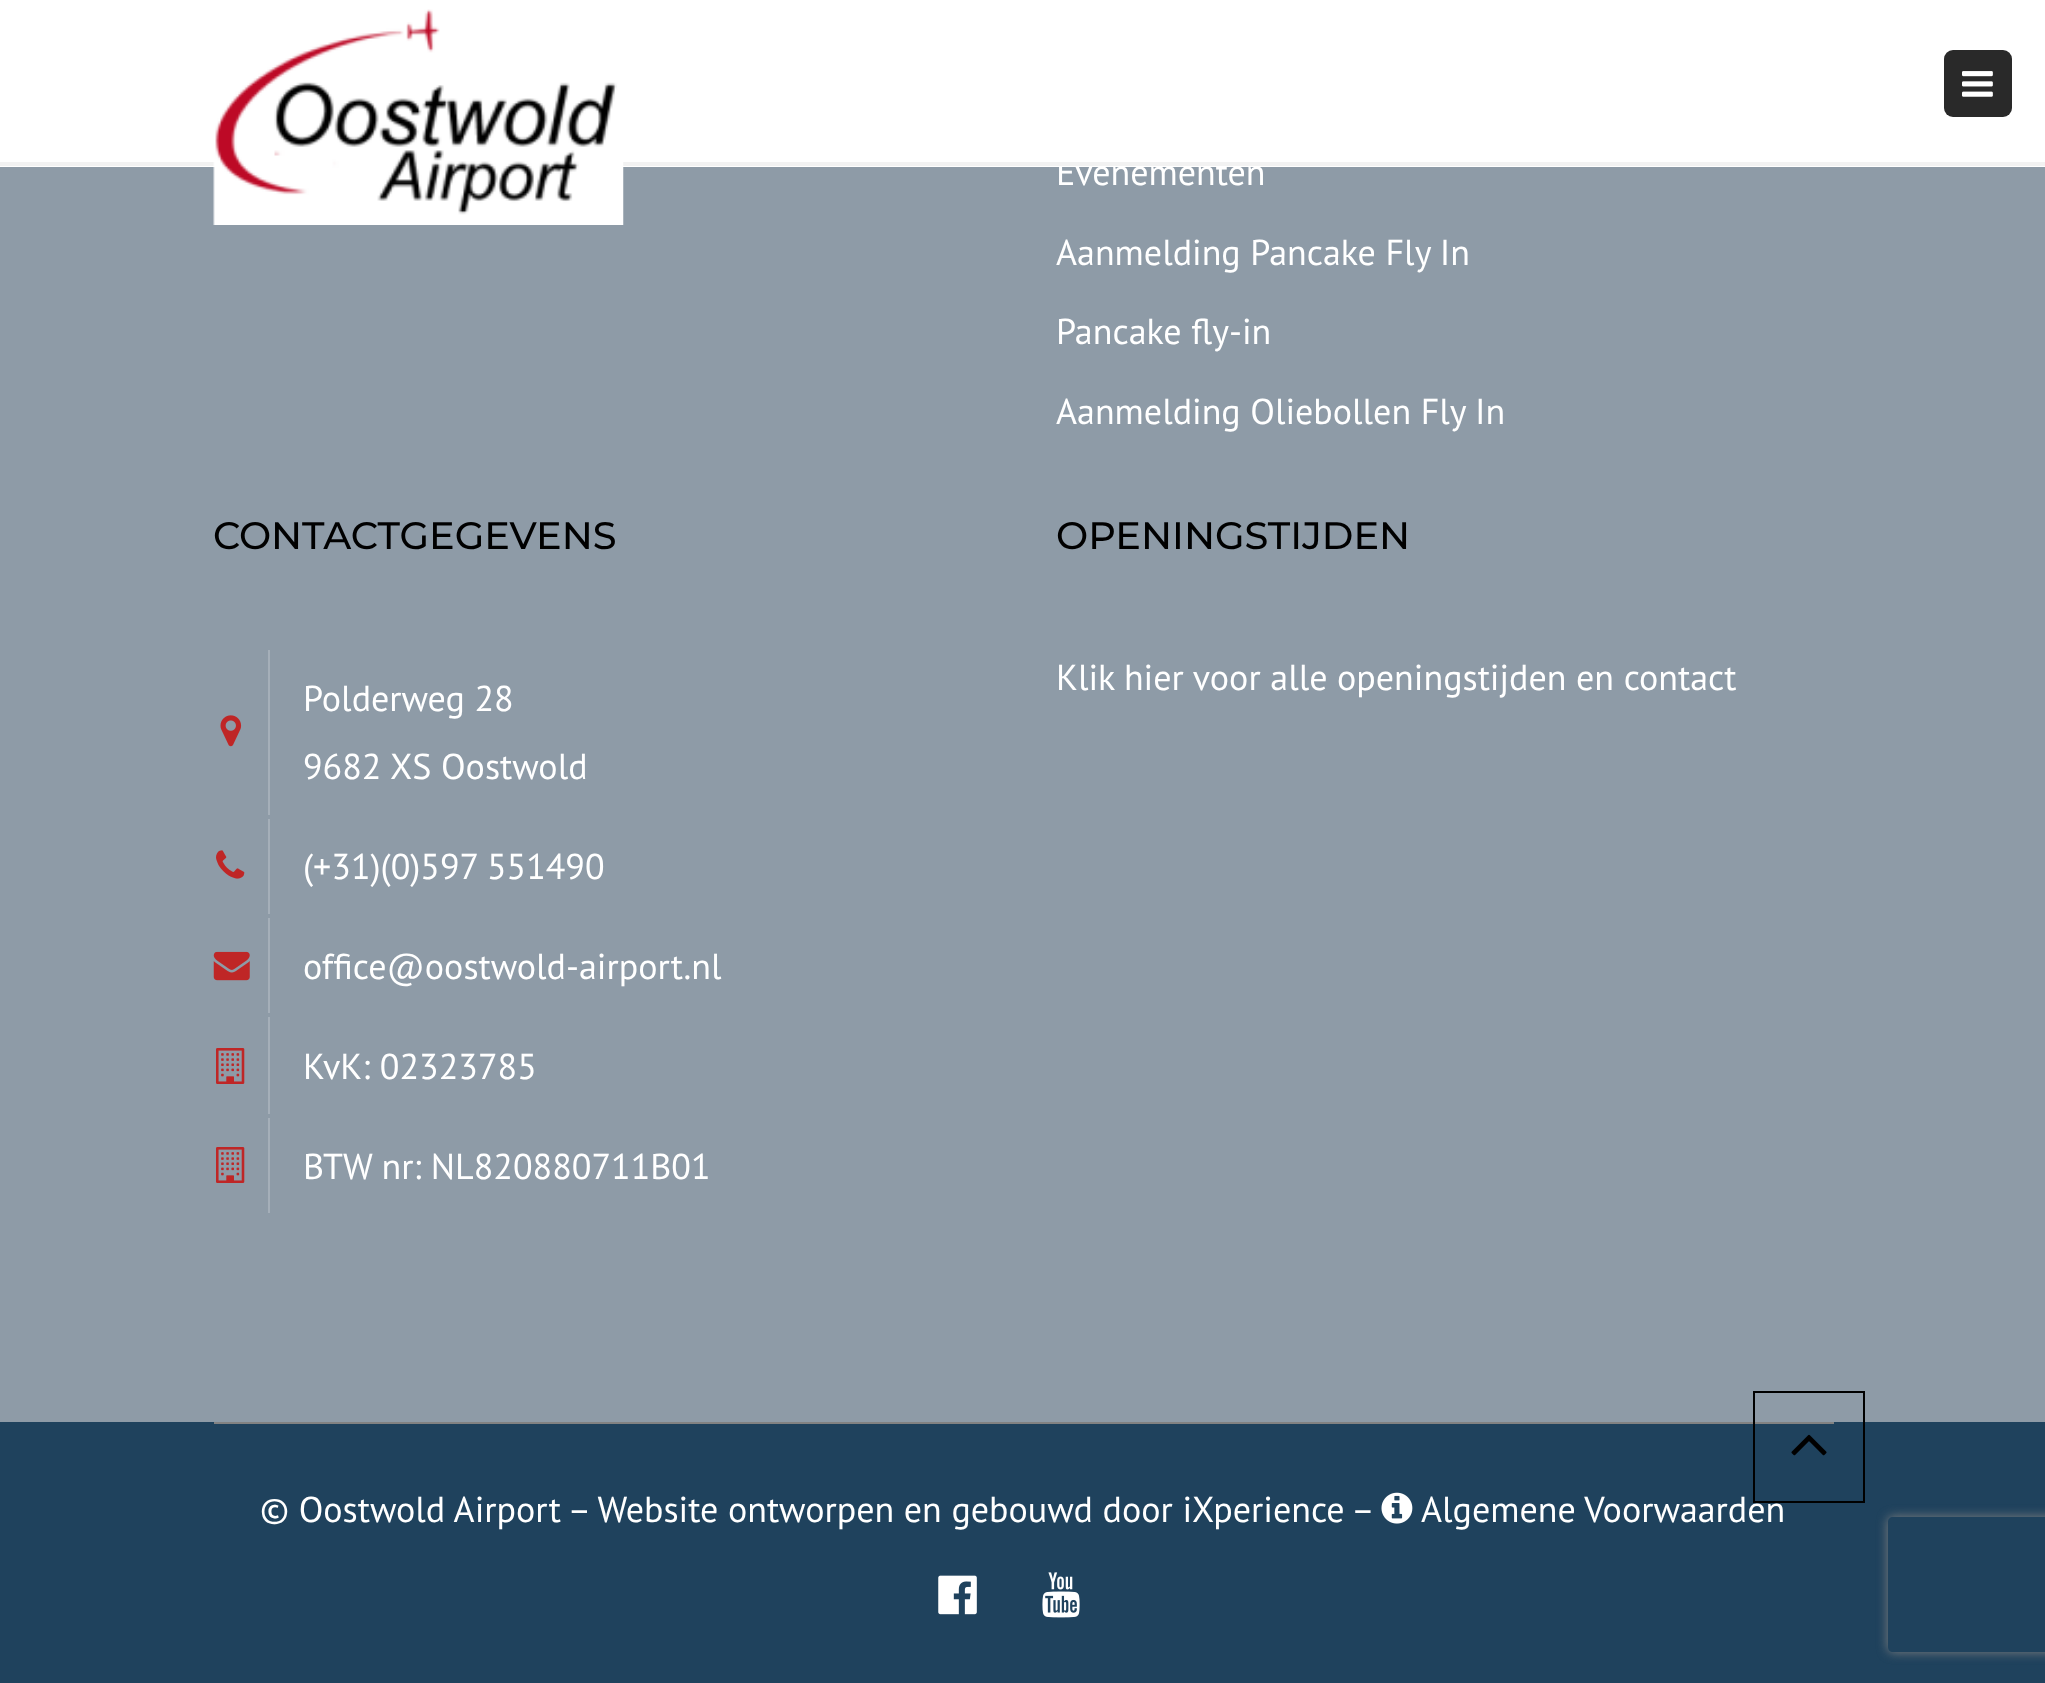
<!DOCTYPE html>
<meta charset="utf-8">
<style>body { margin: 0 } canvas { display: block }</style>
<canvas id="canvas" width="2045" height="1683"></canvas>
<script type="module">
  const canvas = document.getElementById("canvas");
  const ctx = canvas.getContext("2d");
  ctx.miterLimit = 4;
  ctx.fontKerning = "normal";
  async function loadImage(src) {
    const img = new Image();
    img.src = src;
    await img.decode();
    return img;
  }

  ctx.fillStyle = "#8e9ba7";
  ctx.fillRect(0, 0, 2045, 1683);
  ctx.fillStyle = "#ffffff";
  ctx.fillRect(0, 0, 2045, 167);
  ctx.font = "36px PT Sans";
  ctx.fillText("Evenementen", 1056, 185);
  ctx.fillStyle = "#f2f2f2";
  ctx.fillRect(0, 162, 2045, 4);
  ctx.drawImage(await loadImage("img1.png"), 213, 9, 411, 216);
  ctx.fillStyle = "#292929";
  ctx.beginPath();
  ctx.roundRect(1944, 50, 68, 67, 9);
  ctx.fill();
  ctx.drawImage(await loadImage("img2.png"), 1962, 71, 31, 26);
  ctx.fillStyle = "#ffffff";
  ctx.fillText("Aanmelding Pancake Fly In", 1056, 265);
  ctx.fillText("Pancake fly-in", 1056, 344);
  ctx.fillText("Aanmelding Oliebollen Fly In", 1056, 424);
  ctx.font = "500 38.25px Montserrat";
  ctx.fillStyle = "#000000";
  ctx.fillText("CONTACTGEGEVENS", 213, 549);
  ctx.fillStyle = "#a5afb9";
  ctx.fillRect(268, 650, 2, 165);
  ctx.font = "36px PT Sans";
  ctx.fillStyle = "#ffffff";
  ctx.fillText("Polderweg 28", 303, 711);
  ctx.drawImage(await loadImage("img3.png"), 220, 715, 22, 32);
  ctx.fillText("9682 XS Oostwold", 303, 779);
  ctx.drawImage(await loadImage("img4.png"), 216, 850, 29, 29);
  ctx.fillStyle = "#a5afb9";
  ctx.fillRect(268, 819, 2, 95);
  ctx.fillStyle = "#ffffff";
  ctx.fillText("(+31)(0)597 551490", 303, 879);
  ctx.drawImage(await loadImage("img5.png"), 213, 951, 37, 30);
  ctx.fillStyle = "#a5afb9";
  ctx.fillRect(268, 918, 2, 95);
  ctx.fillStyle = "#ffffff";
  ctx.fillText("office@oostwold-airport.nl", 303, 979);
  ctx.drawImage(await loadImage("img6.png"), 216, 1048, 29, 36);
  ctx.fillStyle = "#a5afb9";
  ctx.fillRect(268, 1017, 2, 97);
  ctx.fillStyle = "#ffffff";
  ctx.fillText("KvK: 02323785", 303, 1079);
  ctx.drawImage(await loadImage("img6.png"), 216, 1147, 29, 36);
  ctx.fillStyle = "#a5afb9";
  ctx.fillRect(268, 1118, 2, 95);
  ctx.fillStyle = "#ffffff";
  ctx.fillText("BTW nr: NL820880711B01", 303, 1179);
  ctx.font = "500 38.25px Montserrat";
  ctx.fillStyle = "#000000";
  ctx.fillText("OPENINGSTIJDEN", 1056, 549);
  ctx.font = "36px PT Sans";
  ctx.fillStyle = "#ffffff";
  ctx.fillText("Klik hier voor alle openingstijden en contact", 1056, 690);
  ctx.fillStyle = "#1f425d";
  ctx.fillRect(0, 1422, 2045, 261);
  ctx.fillStyle = "#828282";
  ctx.fillRect(214, 1422, 1620, 2);
  ctx.fillStyle = "#ffffff";
  ctx.fillText("© Oostwold Airport – Website ontworpen en gebouwd door iXperience", 260, 1522);
  ctx.fillText("–", 1351, 1522);
  ctx.drawImage(await loadImage("img7.png"), 1381, 1492, 32, 32);
  ctx.fillText("Algemene Voorwaarden", 1421, 1522);
  ctx.drawImage(await loadImage("img8.png"), 938, 1575, 39, 40);
  ctx.drawImage(await loadImage("img9.png"), 1042, 1572, 38, 46);
  ctx.strokeStyle = "#000000";
  ctx.lineWidth = 2;
  ctx.strokeRect(1754, 1392, 110, 110);
  ctx.drawImage(await loadImage("img10.png"), 1791, 1434, 36, 22);
  ctx.save();
  ctx.beginPath();
  ctx.moveTo(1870, 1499);
  ctx.lineTo(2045, 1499);
  ctx.lineTo(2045, 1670);
  ctx.lineTo(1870, 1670);
  ctx.closePath();
  ctx.moveTo(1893, 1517);
  ctx.lineTo(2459, 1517);
  ctx.bezierCurveTo(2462, 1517, 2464, 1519, 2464, 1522);
  ctx.lineTo(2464, 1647);
  ctx.bezierCurveTo(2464, 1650, 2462, 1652, 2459, 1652);
  ctx.lineTo(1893, 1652);
  ctx.bezierCurveTo(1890, 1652, 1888, 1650, 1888, 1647);
  ctx.lineTo(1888, 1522);
  ctx.bezierCurveTo(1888, 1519, 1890, 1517, 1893, 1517);
  ctx.closePath();
  ctx.clip("evenodd");
  ctx.fillStyle = "#808080";
  ctx.filter = "blur(5.5px)";
  ctx.beginPath();
  ctx.roundRect(1888, 1517, 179, 135, 5);
  ctx.fill();
  ctx.filter = "none";
  ctx.restore();
</script>
